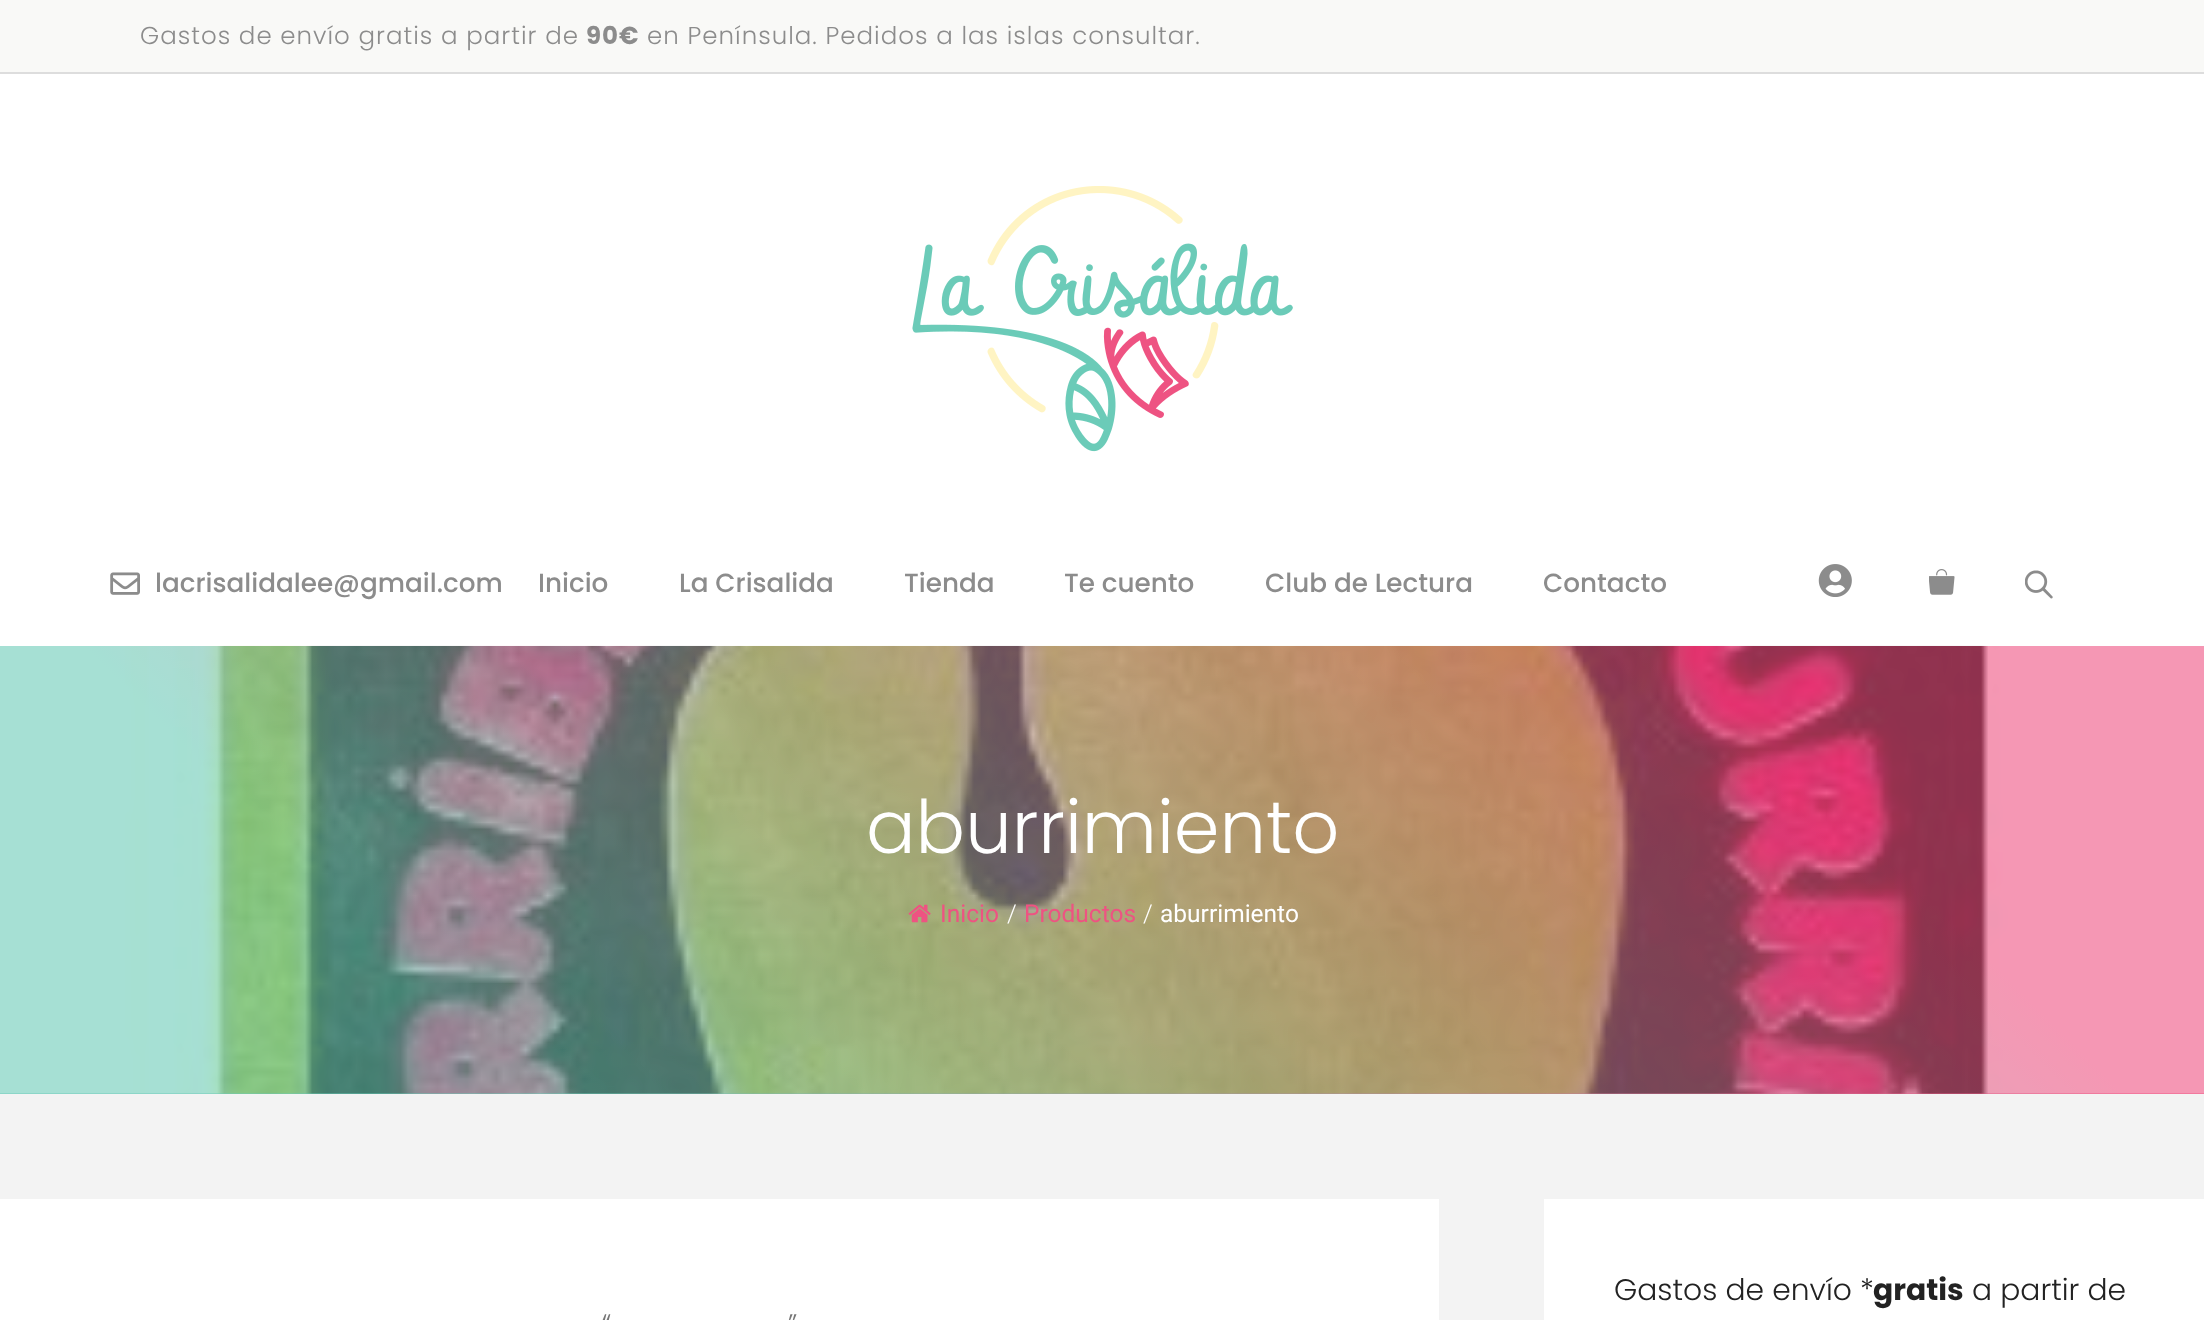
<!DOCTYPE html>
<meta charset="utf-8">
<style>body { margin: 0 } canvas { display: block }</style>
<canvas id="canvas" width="2204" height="1320"></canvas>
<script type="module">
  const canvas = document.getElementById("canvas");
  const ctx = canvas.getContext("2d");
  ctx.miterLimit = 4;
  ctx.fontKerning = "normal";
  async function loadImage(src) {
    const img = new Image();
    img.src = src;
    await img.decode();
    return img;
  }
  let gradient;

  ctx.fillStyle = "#f3f3f3";
  ctx.fillRect(0, 0, 2204, 1320);
  ctx.fillStyle = "#f9f9f7";
  ctx.fillRect(0, 0, 2204, 72);
  ctx.fillStyle = "#dddddd";
  ctx.fillRect(0, 72, 2204, 2);
  ctx.letterSpacing = "1px";
  ctx.font = "300 24.5px Poppins";
  ctx.fillStyle = "#8c8c8c";
  ctx.fillText("Gastos de envío gratis a partir de", 140, 44);
  ctx.font = "bold 24.5px Poppins";
  ctx.fillText("90€", 586, 44);
  ctx.font = "300 24.5px Poppins";
  ctx.fillText("en Península. Pedidos a las islas consultar.", 647, 44);
  ctx.fillStyle = "#ffffff";
  ctx.fillRect(0, 74, 2204, 572);
  ctx.drawImage(await loadImage("img1.png"), 912, 186, 381, 266);
  ctx.drawImage(await loadImage("img2.png"), 110, 572, 30, 23);
  ctx.letterSpacing = "0px";
  ctx.font = "500 26.25px Poppins";
  ctx.fillStyle = "#8c8c8c";
  ctx.fillText("lacrisalidalee@gmail.com", 155, 592);
  ctx.fillText("Inicio", 538, 592);
  ctx.fillText("La Crisalida", 679, 592);
  ctx.fillText("Tienda", 904, 592);
  ctx.fillText("Te cuento", 1064, 592);
  ctx.fillText("Club de Lectura", 1265, 592);
  ctx.fillText("Contacto", 1543, 592);
  ctx.drawImage(await loadImage("img3.png"), 1818, 564, 34, 33);
  ctx.drawImage(await loadImage("img4.png"), 1929, 569, 26, 26);
  ctx.drawImage(await loadImage("img5.png"), 2025, 570, 28, 29);
  gradient = ctx.createLinearGradient(1766, 206, 439, 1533);
  gradient.addColorStop(0.2, "#ee5382");
  gradient.addColorStop(0.8, "#6bcbb8");
  ctx.fillStyle = gradient;
  ctx.fillRect(0, 646, 2204, 448);
  ctx.drawImage(await loadImage("img6.png"), 0, 645, 2204, 449);
  ctx.font = "300 73.5px Poppins";
  ctx.fillStyle = "#ffffff";
  ctx.fillText("aburrimiento", 866, 853);
  ctx.drawImage(await loadImage("img7.png"), 908, 904, 23, 19);
  ctx.font = "24.5px Roboto";
  ctx.fillStyle = "#ee5382";
  ctx.fillText("Inicio", 940, 922);
  ctx.font = "300 24.5px Roboto";
  ctx.fillStyle = "#ffffff";
  ctx.fillText("/", 1007, 922);
  ctx.font = "24.5px Roboto";
  ctx.fillStyle = "#ee5382";
  ctx.fillText("Productos", 1024, 922);
  ctx.font = "300 24.5px Roboto";
  ctx.fillStyle = "#ffffff";
  ctx.fillText("/", 1143, 922);
  ctx.font = "24.5px Roboto";
  ctx.fillText("aburrimiento", 1160, 922);
  ctx.fillRect(1544, 1199, 660, 121);
  ctx.font = "300 29.75px Poppins";
  ctx.fillStyle = "#222222";
  ctx.fillText("Gastos de envío *", 1614, 1300);
  ctx.font = "bold 29.75px Poppins";
  ctx.fillText("gratis", 1873, 1300);
  ctx.font = "300 29.75px Poppins";
  ctx.fillText("a partir de", 1972, 1300);
  ctx.fillStyle = "#ffffff";
  ctx.fillRect(0, 1199, 1439, 121);
  ctx.font = "300 27px Poppins";
  ctx.fillStyle = "#767676";
  ctx.fillText("“", 602, 1333);
  ctx.fillText("”", 788, 1333);
</script>
